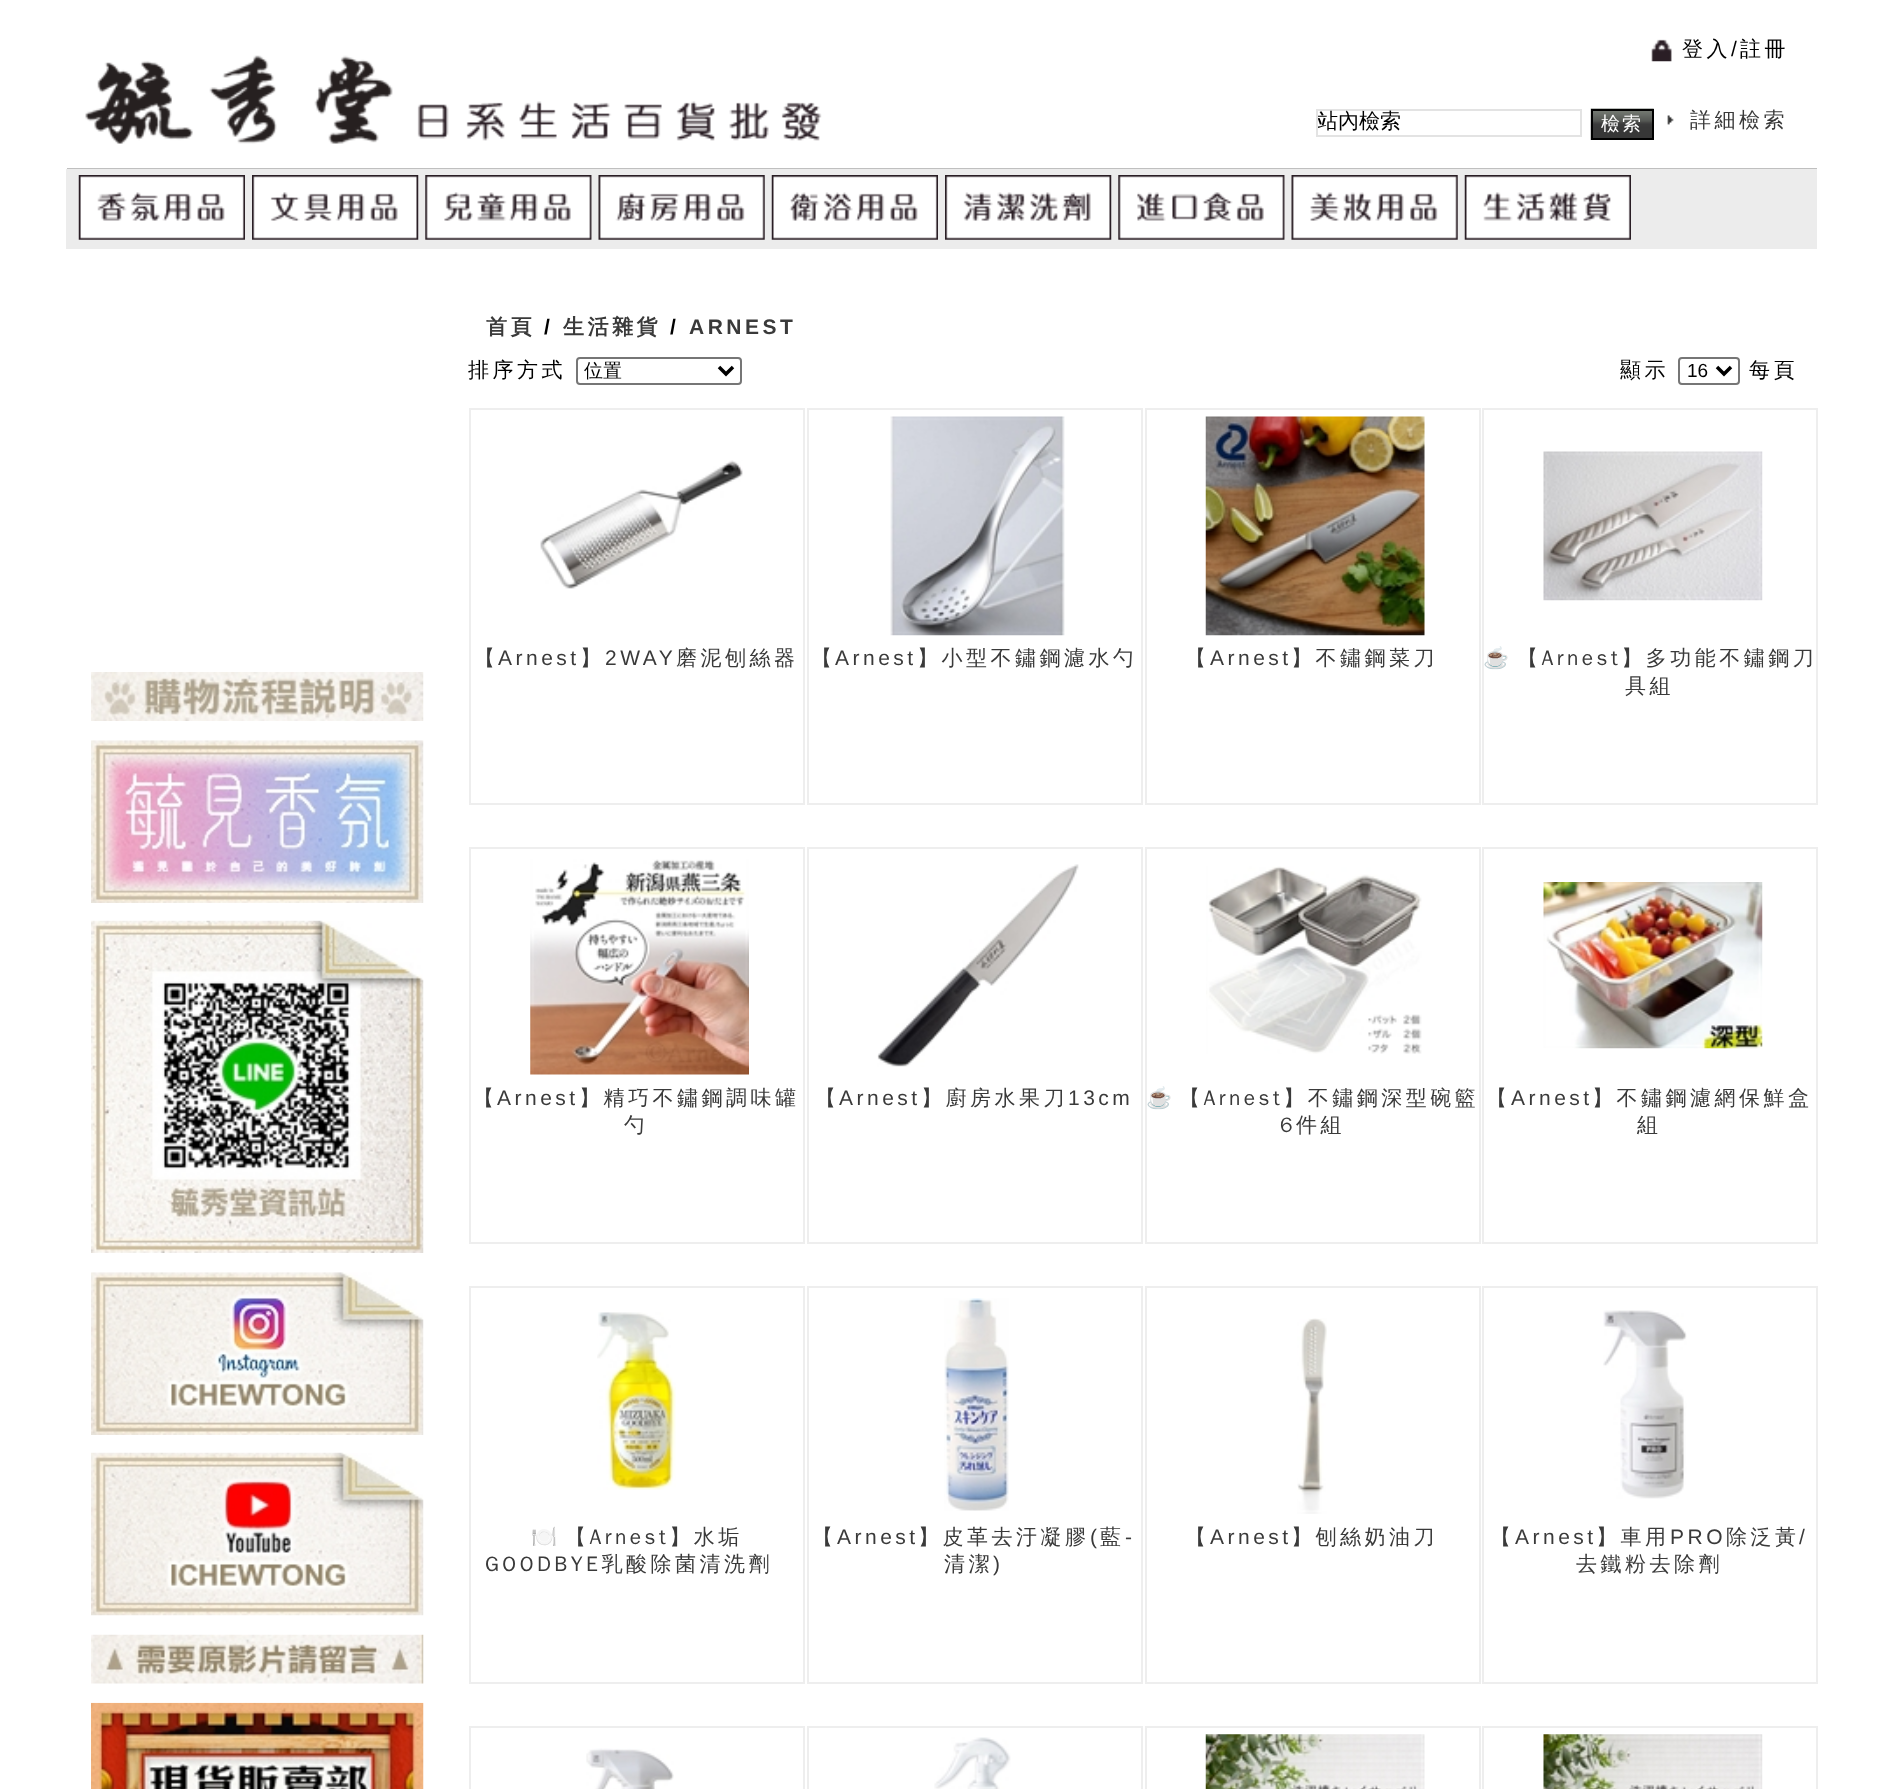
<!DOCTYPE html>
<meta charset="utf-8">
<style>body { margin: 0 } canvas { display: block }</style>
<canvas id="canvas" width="1880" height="1789"></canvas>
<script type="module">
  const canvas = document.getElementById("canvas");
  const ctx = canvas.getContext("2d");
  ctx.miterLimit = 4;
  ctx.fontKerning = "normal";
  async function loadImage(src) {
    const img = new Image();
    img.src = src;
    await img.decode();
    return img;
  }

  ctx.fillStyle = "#ffffff";
  ctx.fillRect(0, 0, 1880, 1789);
  ctx.fillStyle = "#bfbfbf";
  ctx.fillRect(67, 168, 1750, 1);
  ctx.drawImage(await loadImage("img1.png"), 1651, 39, 21, 23);
  ctx.letterSpacing = "3.5px";
  ctx.font = "500 21px WenQuanYi Zen Hei";
  ctx.fillStyle = "#000000";
  ctx.fillText("登入", 1682, 56);
  ctx.font = "21px Liberation Sans";
  ctx.fillText("/", 1731, 56);
  ctx.font = "500 21px WenQuanYi Zen Hei";
  ctx.fillText("註冊", 1740, 56);
  ctx.drawImage(await loadImage("img2.png"), 85, 55, 737, 89);
  ctx.strokeStyle = "#e3e3e3";
  ctx.lineWidth = 2;
  ctx.strokeRect(1317, 110, 264, 26);
  ctx.save();
  ctx.beginPath();
  ctx.rect(1318, 110, 262, 25);
  ctx.clip();
  ctx.letterSpacing = "0px";
  ctx.fillText("站內檢索", 1317, 128);
  ctx.restore();
  ctx.drawImage(await loadImage("img3.png"), 1590, 108, 64, 32);
  ctx.strokeStyle = "#000000";
  ctx.strokeRect(1592, 110, 61, 29);
  ctx.letterSpacing = "2px";
  ctx.font = "500 19px WenQuanYi Zen Hei";
  ctx.fillStyle = "#ffffff";
  ctx.fillText("檢索", 1601, 130);
  ctx.drawImage(await loadImage("img4.png"), 1667, 115, 7, 10);
  ctx.letterSpacing = "3.5px";
  ctx.font = "500 21px WenQuanYi Zen Hei";
  ctx.fillStyle = "#3a3a3a";
  ctx.fillText("詳細檢索", 1690, 127);
  ctx.fillStyle = "#ececec";
  ctx.fillRect(66, 169, 1751, 80);
  ctx.fillStyle = "#ffffff";
  ctx.fillRect(79, 176, 166, 64);
  ctx.drawImage(await loadImage("img5.png"), 78, 175, 167, 65);
  ctx.fillRect(252, 176, 166, 64);
  ctx.drawImage(await loadImage("img6.png"), 252, 175, 167, 65);
  ctx.fillRect(425, 175, 167, 65);
  ctx.drawImage(await loadImage("img7.png"), 425, 175, 167, 65);
  ctx.fillRect(599, 175, 166, 65);
  ctx.drawImage(await loadImage("img8.png"), 598, 175, 167, 65);
  ctx.fillRect(772, 176, 166, 64);
  ctx.drawImage(await loadImage("img9.png"), 771, 175, 167, 65);
  ctx.fillRect(945, 176, 166, 64);
  ctx.drawImage(await loadImage("img10.png"), 945, 175, 167, 65);
  ctx.fillRect(1118, 175, 167, 65);
  ctx.drawImage(await loadImage("img11.png"), 1118, 175, 167, 65);
  ctx.fillRect(1292, 175, 166, 65);
  ctx.drawImage(await loadImage("img12.png"), 1291, 175, 167, 65);
  ctx.fillRect(1465, 176, 166, 64);
  ctx.drawImage(await loadImage("img13.png"), 1464, 175, 167, 65);
  ctx.drawImage(await loadImage("img14.png"), 91, 672, 333, 49);
  ctx.drawImage(await loadImage("img15.png"), 91, 740, 333, 163);
  ctx.drawImage(await loadImage("img16.png"), 91, 920, 333, 333);
  ctx.drawImage(await loadImage("img17.png"), 91, 1272, 333, 163);
  ctx.drawImage(await loadImage("img18.png"), 91, 1452, 333, 164);
  ctx.drawImage(await loadImage("img19.png"), 91, 1634, 333, 50);
  ctx.drawImage(await loadImage("img20.png"), 91, 1702, 333, 87);
  ctx.font = "bold 21px WenQuanYi Zen Hei";
  ctx.fillStyle = "#3a3a3a";
  ctx.fillText("首頁", 486, 334);
  ctx.font = "bold 21px Liberation Sans";
  ctx.fillStyle = "#000000";
  ctx.fillText("/", 544, 334);
  ctx.font = "bold 21px WenQuanYi Zen Hei";
  ctx.fillStyle = "#3a3a3a";
  ctx.fillText("生活雜貨", 563, 334);
  ctx.font = "bold 21px Liberation Sans";
  ctx.fillStyle = "#000000";
  ctx.fillText("/", 670, 334);
  ctx.fillStyle = "#3a3a3a";
  ctx.fillText("ARNEST", 689, 334);
  ctx.font = "500 21px WenQuanYi Zen Hei";
  ctx.fillStyle = "#000000";
  ctx.fillText("排序方式", 468, 377);
  ctx.beginPath();
  ctx.roundRect(577, 358, 164, 26, 3);
  ctx.strokeStyle = "#767676";
  ctx.stroke();
  ctx.beginPath();
  ctx.moveTo(719, 367);
  ctx.lineTo(726, 374);
  ctx.lineTo(733, 367);
  ctx.strokeStyle = "#000000";
  ctx.lineWidth = 3.5;
  ctx.stroke();
  ctx.letterSpacing = "0px";
  ctx.font = "500 19px WenQuanYi Zen Hei";
  ctx.fillText("位置", 584, 377);
  ctx.letterSpacing = "3.5px";
  ctx.font = "500 21px WenQuanYi Zen Hei";
  ctx.fillText("顯示", 1620, 377);
  ctx.beginPath();
  ctx.roundRect(1679, 358, 60, 26, 3);
  ctx.strokeStyle = "#767676";
  ctx.lineWidth = 2;
  ctx.stroke();
  ctx.beginPath();
  ctx.moveTo(1717, 367);
  ctx.lineTo(1724, 374);
  ctx.lineTo(1731, 367);
  ctx.strokeStyle = "#000000";
  ctx.lineWidth = 3.5;
  ctx.stroke();
  ctx.letterSpacing = "0px";
  ctx.font = "19px Liberation Sans";
  ctx.fillText("16", 1687, 377);
  ctx.letterSpacing = "3.5px";
  ctx.font = "500 21px WenQuanYi Zen Hei";
  ctx.fillText("每頁", 1749, 377);
  ctx.strokeStyle = "#eeeeee";
  ctx.lineWidth = 2;
  ctx.strokeRect(470, 409, 334, 395);
  ctx.drawImage(await loadImage("img21.png"), 540, 460, 203, 129);
  ctx.fillStyle = "#3a3a3a";
  ctx.fillText("【", 474, 665);
  ctx.font = "21px Liberation Sans";
  ctx.fillText("Arnest", 498, 665);
  ctx.font = "500 21px WenQuanYi Zen Hei";
  ctx.fillText("】", 580, 665);
  ctx.font = "21px Liberation Sans";
  ctx.fillText("2WAY", 605, 665);
  ctx.font = "500 21px WenQuanYi Zen Hei";
  ctx.fillText("磨泥刨絲器", 676, 665);
  ctx.strokeRect(808, 409, 334, 395);
  ctx.drawImage(await loadImage("img22.png"), 890, 416, 175, 220);
  ctx.fillText("【", 811, 665);
  ctx.font = "21px Liberation Sans";
  ctx.fillText("Arnest", 835, 665);
  ctx.font = "500 21px WenQuanYi Zen Hei";
  ctx.fillText("】小型不鏽鋼濾水勺", 917, 665);
  ctx.strokeRect(1146, 409, 334, 395);
  ctx.drawImage(await loadImage("img23.png"), 1205, 416, 220, 220);
  ctx.fillText("【", 1185, 665);
  ctx.font = "21px Liberation Sans";
  ctx.fillText("Arnest", 1210, 665);
  ctx.font = "500 21px WenQuanYi Zen Hei";
  ctx.fillText("】不鏽鋼菜刀", 1291, 665);
  ctx.strokeRect(1483, 409, 334, 395);
  ctx.drawImage(await loadImage("img24.png"), 1543, 451, 220, 150);
  ctx.save();
  ctx.beginPath();
  ctx.rect(1484, 646, 333, 52);
  ctx.clip();
  ctx.font = "21px Noto Color Emoji";
  ctx.fillText("☕️", 1483, 665);
  ctx.restore();
  ctx.fillText("【Arnest】多功能不鏽鋼刀", 1517, 665);
  ctx.fillText("具組", 1625, 693);
  ctx.strokeRect(470, 848, 334, 395);
  ctx.drawImage(await loadImage("img25.png"), 530, 859, 219, 216);
  ctx.fillText("【", 473, 1105);
  ctx.font = "21px Liberation Sans";
  ctx.fillText("Arnest", 497, 1105);
  ctx.font = "500 21px WenQuanYi Zen Hei";
  ctx.fillText("】精巧不鏽鋼調味罐", 579, 1105);
  ctx.fillText("勺", 624, 1132);
  ctx.strokeRect(808, 848, 334, 395);
  ctx.drawImage(await loadImage("img26.png"), 877, 864, 202, 203);
  ctx.fillText("【", 815, 1105);
  ctx.font = "21px Liberation Sans";
  ctx.fillText("Arnest", 839, 1105);
  ctx.font = "500 21px WenQuanYi Zen Hei";
  ctx.fillText("】廚房水果刀", 921, 1105);
  ctx.font = "21px Liberation Sans";
  ctx.fillText("13cm", 1068, 1105);
  ctx.strokeRect(1146, 848, 334, 395);
  ctx.drawImage(await loadImage("img27.png"), 1206, 866, 216, 188);
  ctx.save();
  ctx.beginPath();
  ctx.rect(1146, 1085, 333, 53);
  ctx.clip();
  ctx.font = "21px Noto Color Emoji";
  ctx.fillText("☕️", 1146, 1105);
  ctx.restore();
  ctx.font = "500 21px WenQuanYi Zen Hei";
  ctx.fillText("【Arnest】不鏽鋼深型碗籃", 1179, 1105);
  ctx.fillText("6件組", 1280, 1132);
  ctx.strokeRect(1483, 848, 334, 395);
  ctx.drawImage(await loadImage("img28.png"), 1543, 882, 220, 167);
  ctx.fillText("【", 1486, 1105);
  ctx.font = "21px Liberation Sans";
  ctx.fillText("Arnest", 1511, 1105);
  ctx.font = "500 21px WenQuanYi Zen Hei";
  ctx.fillText("】不鏽鋼濾網保鮮盒", 1592, 1105);
  ctx.fillText("組", 1637, 1132);
  ctx.strokeRect(470, 1287, 334, 396);
  ctx.drawImage(await loadImage("img29.png"), 597, 1312, 79, 178);
  ctx.font = "21px Noto Color Emoji";
  ctx.fillText("🍽️", 531, 1544);
  ctx.font = "500 21px WenQuanYi Zen Hei";
  ctx.fillText("【Arnest】水垢", 565, 1544);
  ctx.fillText("GOODBYE乳酸除菌清洗劑", 485, 1571);
  ctx.strokeRect(808, 1287, 334, 396);
  ctx.drawImage(await loadImage("img30.png"), 944, 1298, 65, 213);
  ctx.fillText("【", 812, 1544);
  ctx.font = "21px Liberation Sans";
  ctx.fillText("Arnest", 837, 1544);
  ctx.font = "500 21px WenQuanYi Zen Hei";
  ctx.fillText("】皮革去汙凝膠", 918, 1544);
  ctx.font = "21px Liberation Sans";
  ctx.fillText("(", 1090, 1544);
  ctx.font = "500 21px WenQuanYi Zen Hei";
  ctx.fillText("藍", 1100, 1544);
  ctx.font = "21px Liberation Sans";
  ctx.fillText("-", 1125, 1544);
  ctx.font = "500 21px WenQuanYi Zen Hei";
  ctx.fillText("清潔", 944, 1571);
  ctx.font = "21px Liberation Sans";
  ctx.fillText(")", 993, 1571);
  ctx.strokeRect(1146, 1287, 334, 396);
  ctx.drawImage(await loadImage("img31.png"), 1297, 1318, 30, 196);
  ctx.font = "500 21px WenQuanYi Zen Hei";
  ctx.fillText("【", 1185, 1544);
  ctx.font = "21px Liberation Sans";
  ctx.fillText("Arnest", 1210, 1544);
  ctx.font = "500 21px WenQuanYi Zen Hei";
  ctx.fillText("】刨絲奶油刀", 1291, 1544);
  ctx.strokeRect(1483, 1287, 334, 396);
  ctx.drawImage(await loadImage("img32.png"), 1603, 1310, 84, 189);
  ctx.fillText("【", 1490, 1544);
  ctx.font = "21px Liberation Sans";
  ctx.fillText("Arnest", 1515, 1544);
  ctx.font = "500 21px WenQuanYi Zen Hei";
  ctx.fillText("】車用", 1596, 1544);
  ctx.font = "21px Liberation Sans";
  ctx.fillText("PRO", 1670, 1544);
  ctx.font = "500 21px WenQuanYi Zen Hei";
  ctx.fillText("除泛黃", 1726, 1544);
  ctx.font = "21px Liberation Sans";
  ctx.fillText("/", 1799, 1544);
  ctx.font = "500 21px WenQuanYi Zen Hei";
  ctx.fillText("去鐵粉去除劑", 1576, 1571);
  ctx.strokeRect(470, 1727, 334, 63);
  ctx.drawImage(await loadImage("img33.png"), 586, 1748, 88, 41);
  ctx.strokeRect(808, 1727, 334, 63);
  ctx.drawImage(await loadImage("img34.png"), 934, 1737, 77, 52);
  ctx.strokeRect(1146, 1727, 334, 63);
  ctx.drawImage(await loadImage("img35.png"), 1205, 1734, 220, 55);
  ctx.strokeRect(1483, 1727, 334, 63);
  ctx.drawImage(await loadImage("img36.png"), 1543, 1734, 220, 55);
</script>
